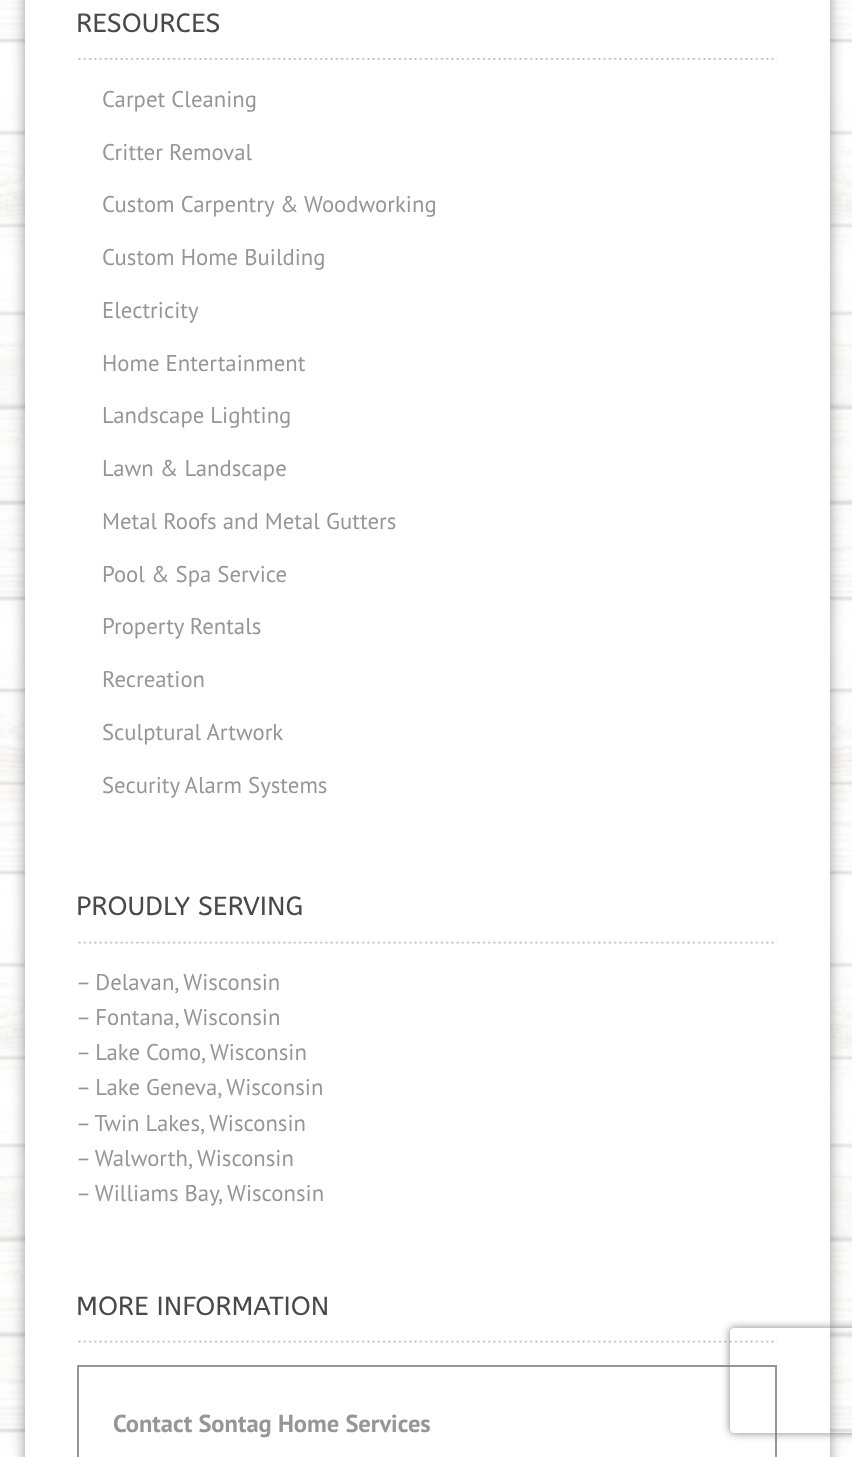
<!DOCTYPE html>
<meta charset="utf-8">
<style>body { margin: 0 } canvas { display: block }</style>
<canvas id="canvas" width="852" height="1457"></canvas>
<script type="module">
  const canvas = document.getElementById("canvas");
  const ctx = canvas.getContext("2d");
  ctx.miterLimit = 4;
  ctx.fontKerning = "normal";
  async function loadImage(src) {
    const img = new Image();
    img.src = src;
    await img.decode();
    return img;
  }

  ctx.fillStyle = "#ffffff";
  ctx.fillRect(0, 0, 852, 1457);
  ctx.drawImage(await loadImage("img1.png"), 0, 0, 852, 1457);
  ctx.fillStyle = "rgba(0, 0, 0, 0.4)";
  ctx.filter = "blur(7px)";
  ctx.beginPath();
  ctx.rect(25, -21, 805, 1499);
  ctx.fill();
  ctx.filter = "none";
  ctx.fillStyle = "#ffffff";
  ctx.fillRect(25, 0, 805, 1457);
  ctx.drawImage(await loadImage("img2.png"), 78, 58, 699, 2);
  ctx.font = "26.25px ABeeZee";
  ctx.fillStyle = "#494949";
  ctx.fillText("RESOURCES", 76, 32);
  ctx.font = "22.75px PT Sans";
  ctx.fillStyle = "#969696";
  ctx.fillText("Carpet Cleaning", 102, 107);
  ctx.fillText("Critter Removal", 102, 160);
  ctx.fillText("Custom Carpentry & Woodworking", 102, 212);
  ctx.fillText("Custom Home Building", 102, 265);
  ctx.fillText("Electricity", 102, 318);
  ctx.fillText("Home Entertainment", 102, 371);
  ctx.fillText("Landscape Lighting", 102, 423);
  ctx.fillText("Lawn & Landscape", 102, 476);
  ctx.fillText("Metal Roofs and Metal Gutters", 102, 529);
  ctx.fillText("Pool & Spa Service", 102, 582);
  ctx.fillText("Property Rentals", 102, 634);
  ctx.fillText("Recreation", 102, 687);
  ctx.fillText("Sculptural Artwork", 102, 740);
  ctx.fillText("Security Alarm Systems", 102, 793);
  ctx.drawImage(await loadImage("img3.png"), 78, 941, 699, 3);
  ctx.font = "26.25px ABeeZee";
  ctx.fillStyle = "#494949";
  ctx.fillText("PROUDLY SERVING", 76, 915);
  ctx.font = "22.75px PT Sans";
  ctx.fillStyle = "#969696";
  ctx.fillText("– Delavan, Wisconsin", 76, 990);
  ctx.fillText("– Fontana, Wisconsin", 76, 1025);
  ctx.fillText("– Lake Como, Wisconsin", 76, 1060);
  ctx.fillText("– Lake Geneva, Wisconsin", 76, 1095);
  ctx.fillText("– Twin Lakes, Wisconsin", 76, 1131);
  ctx.fillText("– Walworth, Wisconsin", 76, 1166);
  ctx.fillText("– Williams Bay, Wisconsin", 76, 1201);
  ctx.drawImage(await loadImage("img3.png"), 78, 1340, 699, 3);
  ctx.font = "26.25px ABeeZee";
  ctx.fillStyle = "#494949";
  ctx.fillText("MORE INFORMATION", 76, 1315);
  ctx.strokeStyle = "#959595";
  ctx.lineWidth = 2;
  ctx.strokeRect(78, 1366, 698, 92);
  ctx.font = "bold 24.5px PT Sans";
  ctx.fillStyle = "#969696";
  ctx.fillText("Contact Sontag Home Services", 113, 1432);
  ctx.save();
  ctx.beginPath();
  ctx.moveTo(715, 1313);
  ctx.lineTo(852, 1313);
  ctx.lineTo(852, 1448);
  ctx.lineTo(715, 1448);
  ctx.closePath();
  ctx.moveTo(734, 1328);
  ctx.lineTo(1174, 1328);
  ctx.bezierCurveTo(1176, 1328, 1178, 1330, 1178, 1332);
  ctx.lineTo(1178, 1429);
  ctx.bezierCurveTo(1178, 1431, 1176, 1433, 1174, 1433);
  ctx.lineTo(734, 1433);
  ctx.bezierCurveTo(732, 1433, 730, 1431, 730, 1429);
  ctx.lineTo(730, 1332);
  ctx.bezierCurveTo(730, 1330, 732, 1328, 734, 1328);
  ctx.closePath();
  ctx.clip("evenodd");
  ctx.fillStyle = "#808080";
  ctx.filter = "blur(4.5px)";
  ctx.beginPath();
  ctx.roundRect(730, 1328, 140, 105, 4);
  ctx.fill();
  ctx.filter = "none";
  ctx.restore();
</script>
